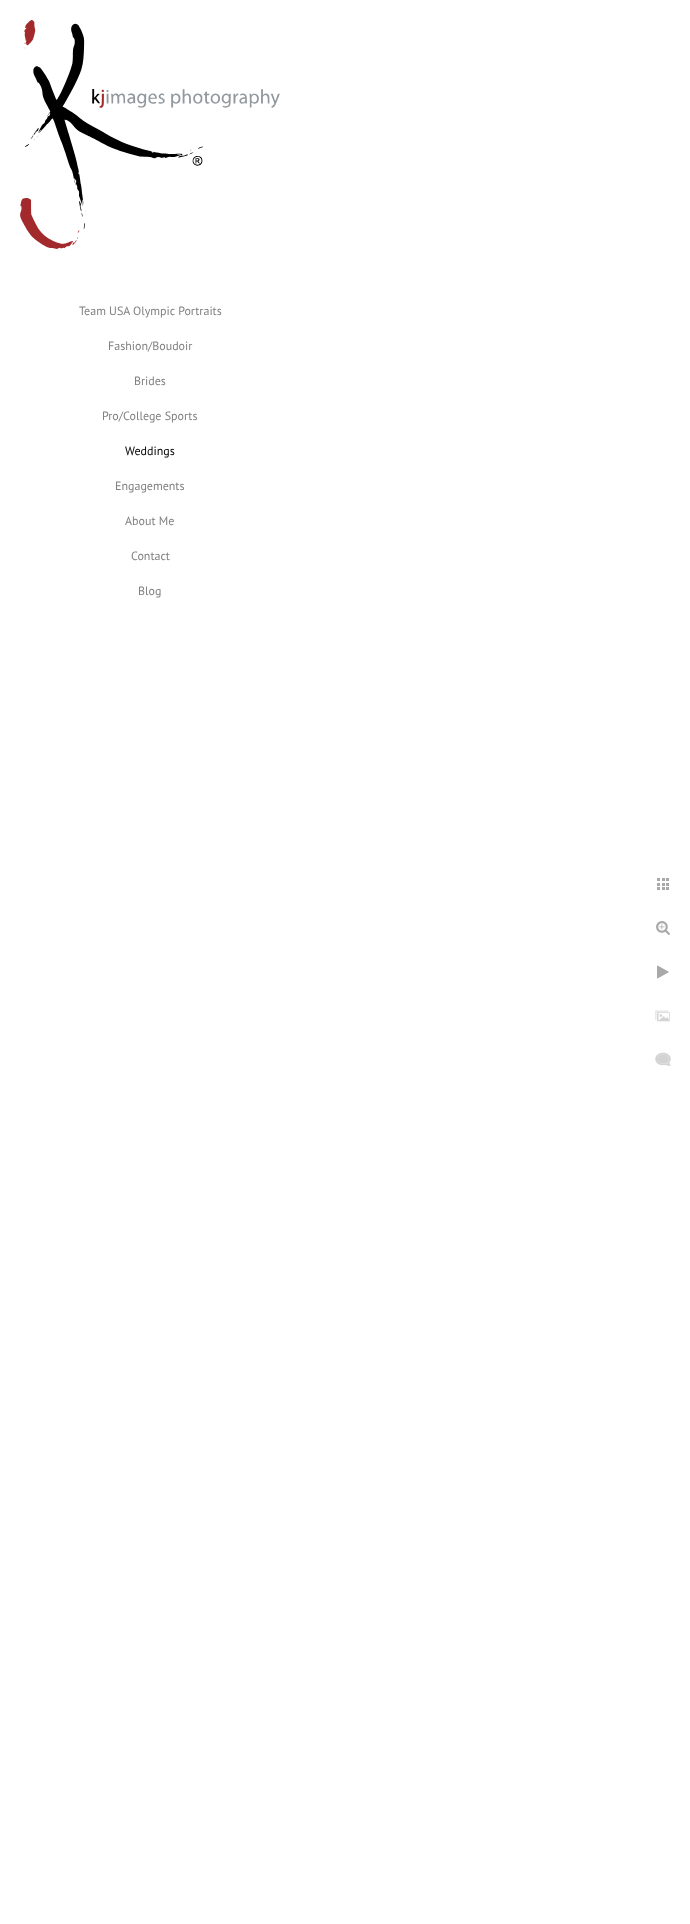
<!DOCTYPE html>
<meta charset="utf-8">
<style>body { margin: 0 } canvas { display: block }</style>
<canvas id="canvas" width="690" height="1924"></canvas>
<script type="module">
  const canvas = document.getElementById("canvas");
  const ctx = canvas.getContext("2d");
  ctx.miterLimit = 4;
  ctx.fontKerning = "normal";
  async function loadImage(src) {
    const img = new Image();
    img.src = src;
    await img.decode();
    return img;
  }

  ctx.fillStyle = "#ffffff";
  ctx.fillRect(0, 0, 690, 1924);
  ctx.drawImage(await loadImage("img1.png"), 20, 20, 260, 229);
  ctx.font = "12px PT Sans";
  ctx.fillStyle = "#808080";
  ctx.fillText("Team USA Olympic Portraits", 79, 315);
  ctx.fillText("Fashion/Boudoir", 108, 350);
  ctx.fillText("Brides", 134, 385);
  ctx.fillText("Pro/College Sports", 102, 420);
  ctx.fillStyle = "#000000";
  ctx.fillText("Weddings", 125, 455);
  ctx.fillStyle = "#808080";
  ctx.fillText("Engagements", 115, 490);
  ctx.fillText("About Me", 125, 525);
  ctx.fillText("Contact", 131, 560);
  ctx.fillText("Blog", 138, 595);
  ctx.drawImage(await loadImage("img2.png"), 657, 878, 12, 12);
  ctx.drawImage(await loadImage("img3.png"), 656, 921, 14, 14);
  ctx.drawImage(await loadImage("img4.png"), 657, 965, 12, 14);
  ctx.drawImage(await loadImage("img5.png"), 655, 1010, 15, 12);
  ctx.drawImage(await loadImage("img6.png"), 655, 1052, 16, 14);
</script>
